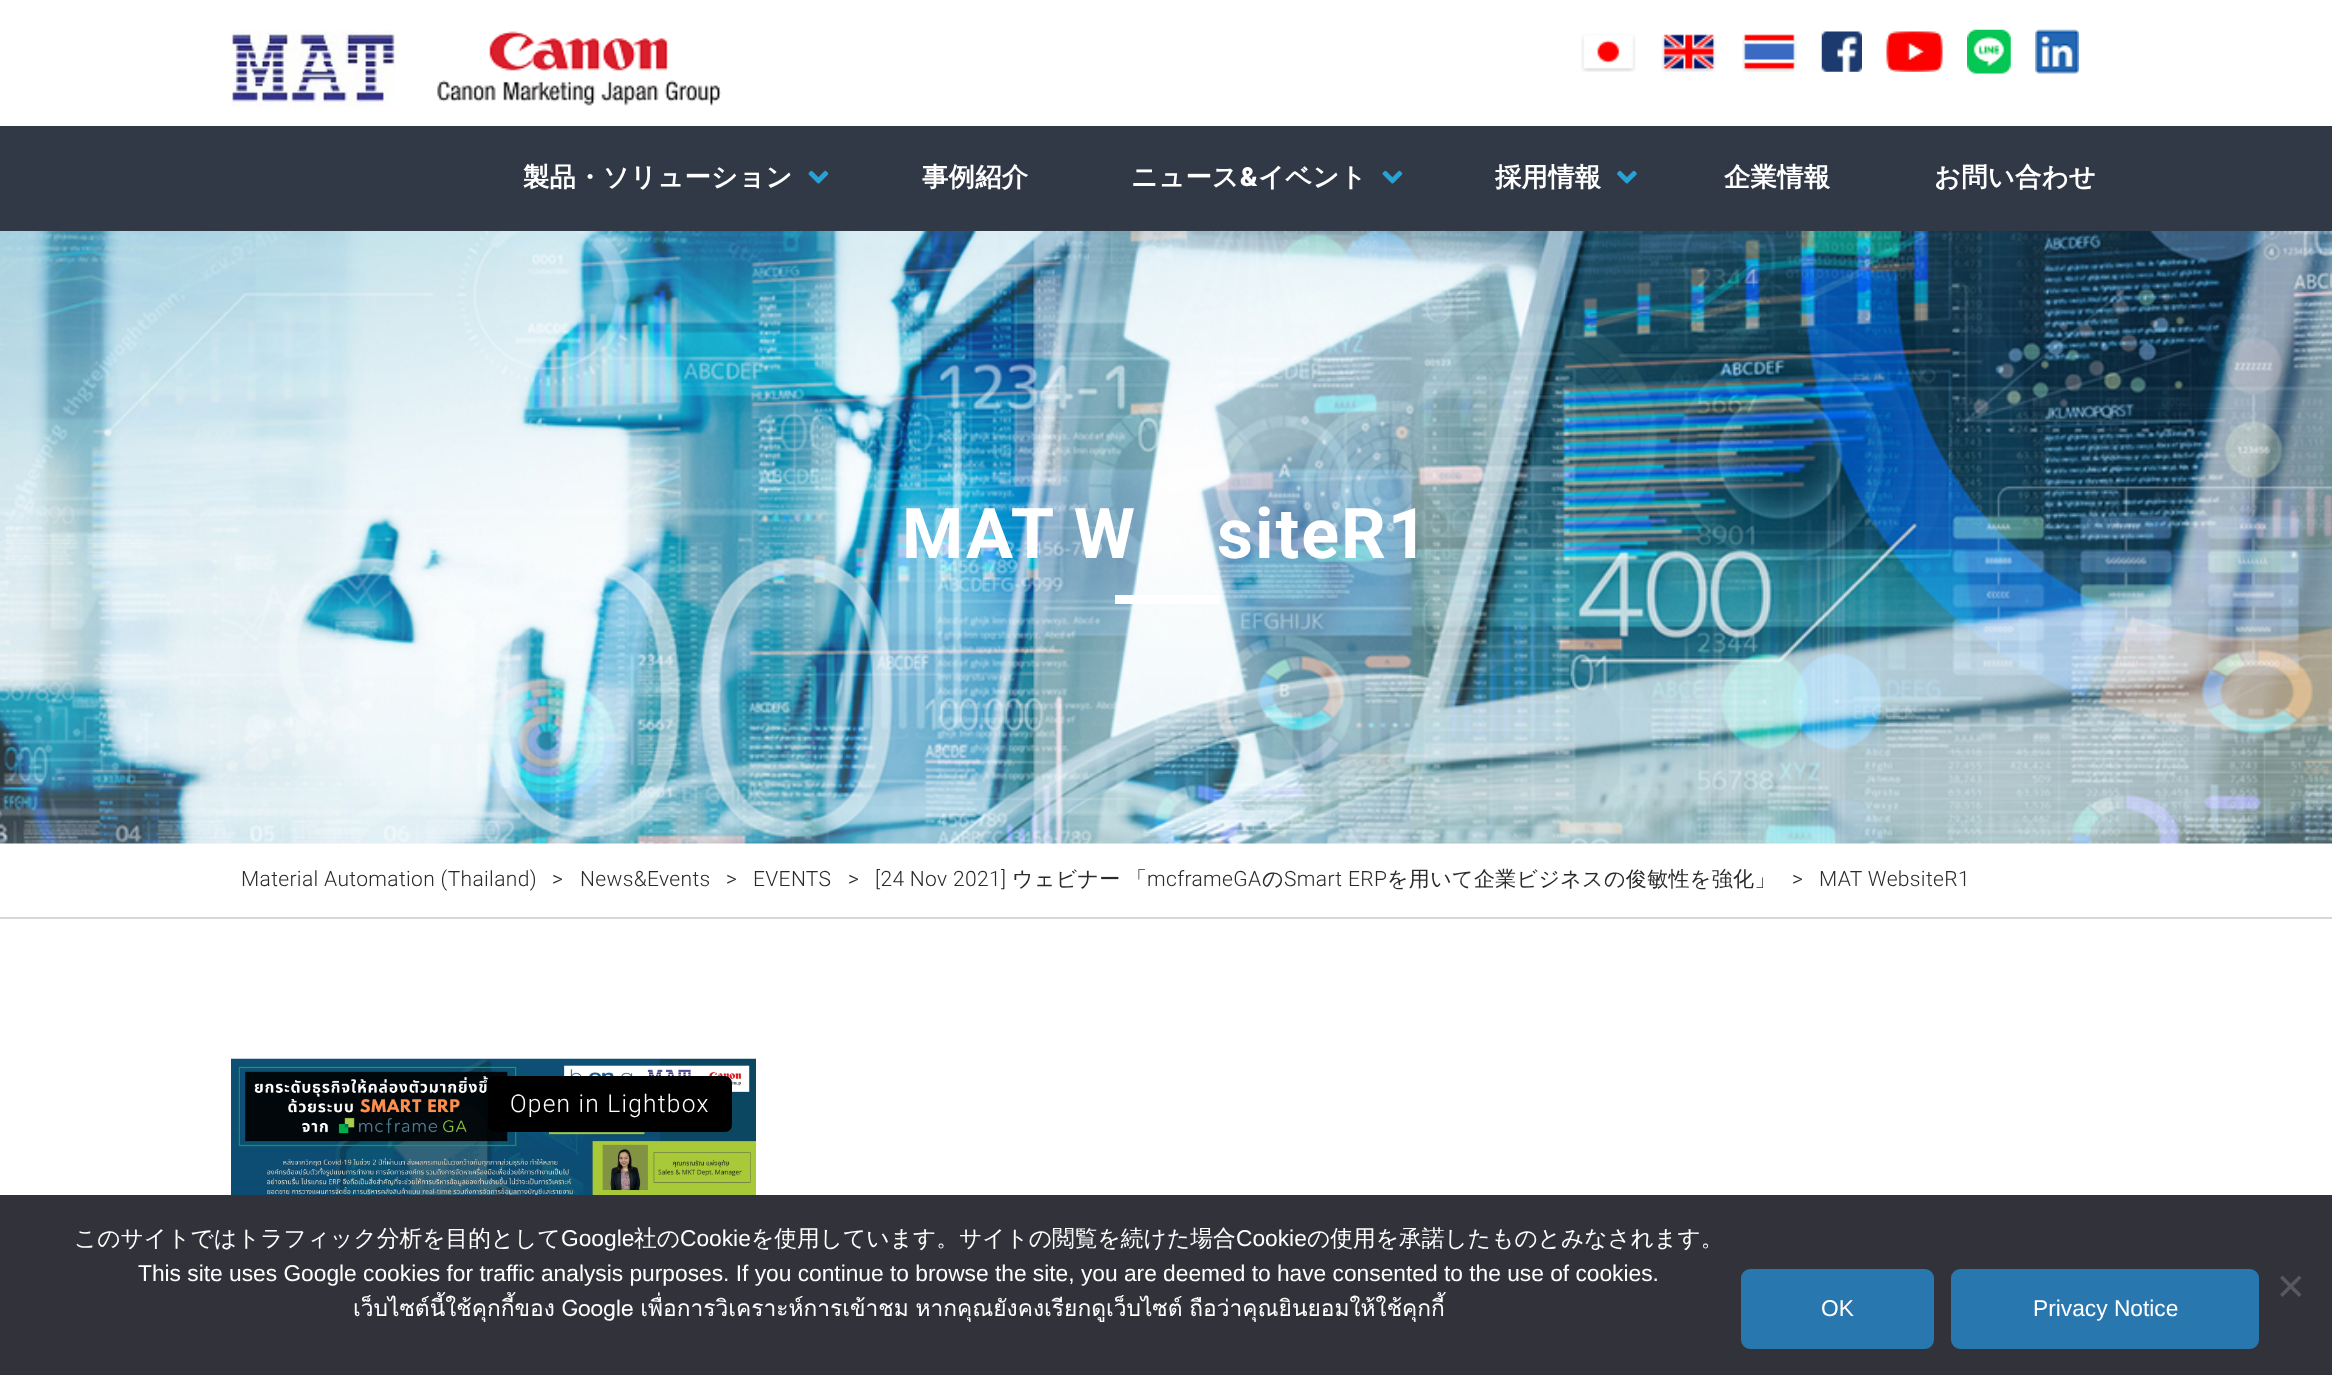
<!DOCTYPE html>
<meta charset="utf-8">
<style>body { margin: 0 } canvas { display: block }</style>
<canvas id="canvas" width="2332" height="1375"></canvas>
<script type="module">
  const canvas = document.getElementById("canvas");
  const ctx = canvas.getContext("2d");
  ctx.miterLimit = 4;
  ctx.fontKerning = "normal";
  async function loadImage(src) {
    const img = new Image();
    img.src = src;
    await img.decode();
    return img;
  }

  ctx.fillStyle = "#ffffff";
  ctx.fillRect(0, 0, 2332, 1375);
  ctx.drawImage(await loadImage("img1.png"), 231, 30, 165, 77);
  ctx.drawImage(await loadImage("img2.png"), 437, 31, 285, 75);
  ctx.drawImage(await loadImage("img3.png"), 1581, 34, 55, 38);
  ctx.drawImage(await loadImage("img4.png"), 1661, 34, 55, 38);
  ctx.drawImage(await loadImage("img5.png"), 1742, 34, 55, 38);
  ctx.drawImage(await loadImage("img6.png"), 1821, 31, 41, 41);
  ctx.drawImage(await loadImage("img7.png"), 1886, 31, 57, 41);
  ctx.drawImage(await loadImage("img8.png"), 1967, 29, 44, 45);
  ctx.drawImage(await loadImage("img9.png"), 2035, 29, 44, 45);
  ctx.fillStyle = "#323946";
  ctx.fillRect(0, 126, 2332, 105);
  ctx.letterSpacing = "0.35px";
  ctx.font = "bold 26.25px WenQuanYi Zen Hei";
  ctx.fillStyle = "#ffffff";
  ctx.fillText("製品・ソリューション", 523, 186);
  ctx.drawImage(await loadImage("img10.png"), 808, 170, 21, 14);
  ctx.fillText("事例紹介", 922, 186);
  ctx.fillText("ニュース", 1131, 186);
  ctx.font = "900 26.25px Roboto";
  ctx.fillText("&", 1240, 186);
  ctx.font = "bold 26.25px WenQuanYi Zen Hei";
  ctx.fillText("イベント", 1258, 186);
  ctx.drawImage(await loadImage("img10.png"), 1382, 170, 21, 14);
  ctx.fillText("採用情報", 1495, 186);
  ctx.drawImage(await loadImage("img11.png"), 1617, 170, 20, 14);
  ctx.fillText("企業情報", 1724, 186);
  ctx.fillText("お問い合わせ", 1934, 186);
  ctx.drawImage(await loadImage("img12.png"), 0, 231, 2332, 613);
  ctx.letterSpacing = "2px";
  ctx.font = "bold 70px Roboto";
  ctx.fillText("MAT W", 902, 558);
  ctx.fillText("siteR1", 1217, 558);
  ctx.fillRect(1115, 595, 105, 9);
  ctx.fillStyle = "#d7d7d7";
  ctx.fillRect(0, 917, 2332, 2);
  ctx.letterSpacing = "0.35px";
  ctx.font = "300 21px Roboto";
  ctx.fillStyle = "#2a2a2a";
  ctx.fillText("Material Automation (Thailand)", 241, 886);
  ctx.fillText(">", 552, 886);
  ctx.fillText("News&Events", 580, 886);
  ctx.fillText(">", 726, 886);
  ctx.fillText("EVENTS", 753, 886);
  ctx.fillText(">", 848, 886);
  ctx.fillText("[24 Nov 2021]", 875, 886);
  ctx.font = "500 21px WenQuanYi Zen Hei";
  ctx.fillText("ウェビナー", 1012, 886);
  ctx.fillText("「", 1126, 886);
  ctx.font = "300 21px Roboto";
  ctx.fillText("mcframeGA", 1147, 886);
  ctx.font = "500 21px WenQuanYi Zen Hei";
  ctx.fillText("の", 1262, 886);
  ctx.font = "300 21px Roboto";
  ctx.fillText("Smart ERP", 1284, 886);
  ctx.font = "500 21px WenQuanYi Zen Hei";
  ctx.fillText("を用いて企業ビジネスの俊敏性を強化」", 1387, 886);
  ctx.font = "300 21px Roboto";
  ctx.fillText(">", 1792, 886);
  ctx.fillText("MAT WebsiteR1", 1819, 886);
  ctx.drawImage(await loadImage("img13.png"), 231, 1058, 525, 137);
  ctx.fillStyle = "#000000";
  ctx.beginPath();
  ctx.roundRect(488, 1076, 244, 56, 7);
  ctx.fill();
  ctx.letterSpacing = "1.25px";
  ctx.font = "300 24.5px Roboto";
  ctx.fillStyle = "#ffffff";
  ctx.fillText("Open in Lightbox", 510, 1112);
  ctx.fillStyle = "#32323a";
  ctx.fillRect(0, 1195, 2332, 180);
  ctx.letterSpacing = "0px";
  ctx.font = "500 22.75px WenQuanYi Zen Hei";
  ctx.fillStyle = "#ffffff";
  ctx.fillText("このサイトではトラフィック分析を目的として", 74, 1246);
  ctx.font = "22.75px Liberation Sans";
  ctx.fillText("Google", 561, 1246);
  ctx.font = "500 22.75px WenQuanYi Zen Hei";
  ctx.fillText("社の", 634, 1246);
  ctx.font = "22.75px Liberation Sans";
  ctx.fillText("Cookie", 680, 1246);
  ctx.font = "500 22.75px WenQuanYi Zen Hei";
  ctx.fillText("を使用しています。サイトの閲覧を続けた場合", 751, 1246);
  ctx.font = "22.75px Liberation Sans";
  ctx.fillText("Cookie", 1236, 1246);
  ctx.font = "500 22.75px WenQuanYi Zen Hei";
  ctx.fillText("の使用を承諾したものとみなされます。", 1307, 1246);
  ctx.font = "22.75px Liberation Sans";
  ctx.fillText("This site uses Google cookies for traffic analysis purposes. If you continue to browse the site, you are deemed to have consented to the use of cookies.", 138, 1281);
  ctx.wordSpacing = "-1px";
  ctx.font = "22.75px Loma";
  ctx.fillText("เว็บไซต์นี้ใช้คุกกี้ของ Google เพื่อการวิเคราะห์การเข้าชม หากคุณยังคงเรียกดูเว็บไซต์ ถือว่าคุณยินยอมให้ใช้คุกกี้", 353, 1316);
  ctx.fillStyle = "#59595d";
  ctx.beginPath();
  ctx.moveTo(2299, 1275.5);
  ctx.lineTo(2301.5, 1278);
  ctx.lineTo(2282.5, 1297);
  ctx.lineTo(2280, 1294.5);
  ctx.closePath();
  ctx.fill();
  ctx.beginPath();
  ctx.moveTo(2280, 1278);
  ctx.lineTo(2282.5, 1275.5);
  ctx.lineTo(2301.5, 1294.5);
  ctx.lineTo(2299, 1297);
  ctx.closePath();
  ctx.fill();
  ctx.fillStyle = "#2977af";
  ctx.beginPath();
  ctx.roundRect(1742, 1270, 191, 78, 8);
  ctx.fill();
  ctx.strokeStyle = "#2977af";
  ctx.lineWidth = 2;
  ctx.stroke();
  ctx.wordSpacing = "0px";
  ctx.font = "22.75px Liberation Sans";
  ctx.fillStyle = "#ffffff";
  ctx.fillText("OK", 1821, 1316);
  ctx.fillStyle = "#2977af";
  ctx.beginPath();
  ctx.roundRect(1952, 1270, 306, 78, 8);
  ctx.fill();
  ctx.stroke();
  ctx.fillStyle = "#ffffff";
  ctx.fillText("Privacy Notice", 2033, 1316);
</script>
